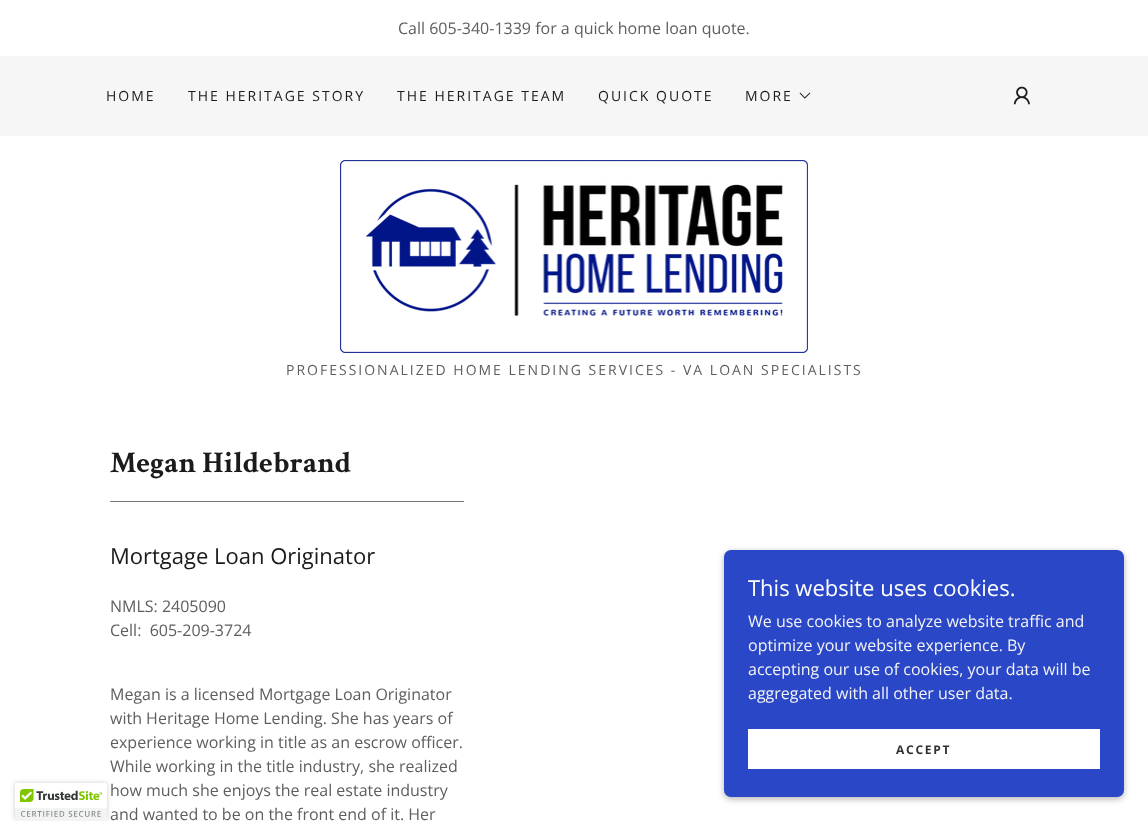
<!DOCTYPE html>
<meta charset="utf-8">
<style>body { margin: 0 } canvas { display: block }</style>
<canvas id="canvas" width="1148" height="821"></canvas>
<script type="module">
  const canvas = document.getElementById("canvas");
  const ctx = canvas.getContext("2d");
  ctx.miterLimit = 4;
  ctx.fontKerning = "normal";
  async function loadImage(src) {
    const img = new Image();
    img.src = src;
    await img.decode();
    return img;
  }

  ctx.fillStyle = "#ffffff";
  ctx.fillRect(0, 0, 1148, 821);
  ctx.fillStyle = "rgba(0, 0, 0, 0.2)";
  ctx.filter = "blur(2.5px)";
  ctx.beginPath();
  ctx.roundRect(15, 783, 92, 38, 2);
  ctx.fill();
  ctx.filter = "none";
  ctx.fillStyle = "#ffffff";
  ctx.beginPath();
  ctx.roundRect(15, 783, 92, 38, [2, 2, 0, 0]);
  ctx.fill();
  ctx.drawImage(await loadImage("img1.png"), 15, 789, 92, 32);
  ctx.font = "16px Open Sans";
  ctx.fillStyle = "#5e5e5e";
  ctx.fillText("Call 605-340-1339 for a quick home loan quote.", 398, 34);
  ctx.fillStyle = "#f6f6f6";
  ctx.fillRect(0, 56, 1148, 80);
  ctx.letterSpacing = "2px";
  ctx.font = "14px Open Sans";
  ctx.fillStyle = "#1b1b1b";
  ctx.fillText("HOME", 106, 101);
  ctx.fillText("THE HERITAGE STORY", 188, 101);
  ctx.fillText("THE HERITAGE TEAM", 397, 101);
  ctx.fillText("QUICK QUOTE", 598, 101);
  ctx.fillText("MORE", 745, 101);
  ctx.drawImage(await loadImage("img2.png"), 799, 92, 12, 7);
  ctx.drawImage(await loadImage("img3.png"), 1013, 86, 17, 19);
  ctx.drawImage(await loadImage("img4.png"), 340, 160, 468, 193);
  ctx.fillStyle = "#5e5e5e";
  ctx.fillText("PROFESSIONALIZED HOME LENDING SERVICES - VA LOAN SPECIALISTS", 286, 375);
  ctx.letterSpacing = "0px";
  ctx.font = "bold 30px Crimson Text";
  ctx.fillStyle = "#1b1b1b";
  ctx.fillText("Megan Hildebrand", 110, 472);
  ctx.fillStyle = "#777777";
  ctx.fillRect(110, 501, 354, 1);
  ctx.font = "22px Open Sans";
  ctx.fillStyle = "#1b1b1b";
  ctx.fillText("Mortgage Loan Originator", 110, 564);
  ctx.font = "16px Open Sans";
  ctx.fillStyle = "#5e5e5e";
  ctx.fillText("NMLS: 2405090", 110, 612);
  ctx.fillText("Cell:  605-209-3724", 110, 636);
  ctx.fillText("Megan is a licensed Mortgage Loan Originator", 110, 700);
  ctx.fillText("with Heritage Home Lending. She has years of", 110, 724);
  ctx.fillText("experience working in title as an escrow officer.", 110, 748);
  ctx.fillText("While working in the title industry, she realized", 110, 772);
  ctx.fillText("how much she enjoys the real estate industry", 110, 796);
  ctx.fillText("and wanted to be on the front end of it. Her", 110, 820);
  ctx.fillStyle = "rgba(0, 0, 0, 0.3)";
  ctx.filter = "blur(3px)";
  ctx.beginPath();
  ctx.roundRect(724, 552, 400, 247, 7);
  ctx.fill();
  ctx.filter = "none";
  ctx.fillStyle = "#2947c7";
  ctx.beginPath();
  ctx.roundRect(724, 550, 400, 247, 7);
  ctx.fill();
  ctx.font = "22px Open Sans";
  ctx.fillStyle = "#ffffff";
  ctx.fillText("This website uses cookies.", 748, 596);
  ctx.font = "16px Open Sans";
  ctx.fillStyle = "#f4f4f5";
  ctx.fillText("We use cookies to analyze website traffic and", 748, 627);
  ctx.fillText("optimize your website experience. By", 748, 651);
  ctx.fillText("accepting our use of cookies, your data will be", 748, 675);
  ctx.fillText("aggregated with all other user data.", 748, 699);
  ctx.fillStyle = "#ffffff";
  ctx.fillRect(748, 729, 352, 40);
  ctx.letterSpacing = "1.75px";
  ctx.font = "bold 12px Open Sans";
  ctx.fillStyle = "#303030";
  ctx.fillText("ACCEPT", 896, 754);
</script>
